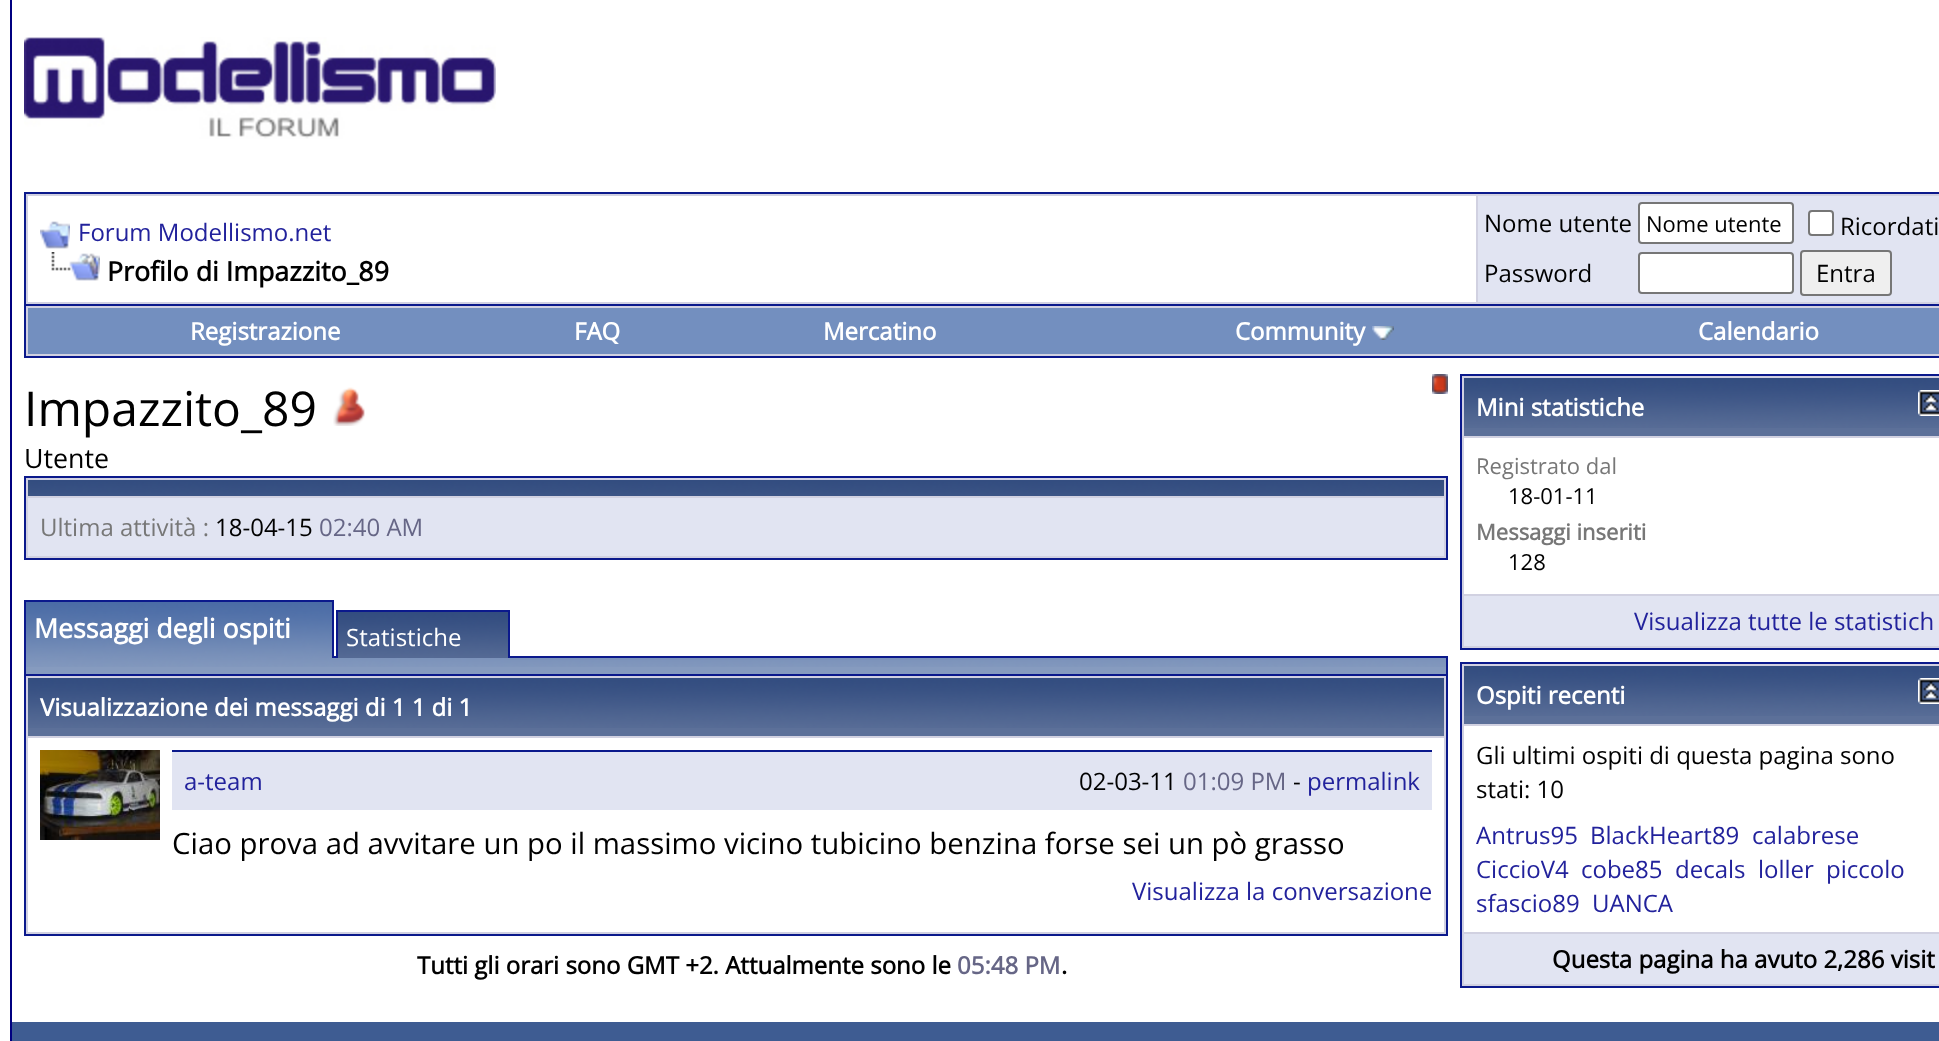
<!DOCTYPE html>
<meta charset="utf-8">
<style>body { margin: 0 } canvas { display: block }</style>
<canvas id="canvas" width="1939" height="1041"></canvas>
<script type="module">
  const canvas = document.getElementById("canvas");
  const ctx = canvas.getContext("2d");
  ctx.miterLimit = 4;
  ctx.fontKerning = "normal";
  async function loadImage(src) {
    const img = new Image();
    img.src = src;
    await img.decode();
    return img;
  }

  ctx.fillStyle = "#ffffff";
  ctx.fillRect(0, 0, 1939, 1041);
  ctx.strokeStyle = "#000080";
  ctx.lineWidth = 2;
  ctx.strokeRect(11, -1, 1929, 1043);
  ctx.drawImage(await loadImage("img1.png"), 24, 37, 472, 102);
  ctx.fillStyle = "#d1d1e1";
  ctx.beginPath();
  ctx.rect(25, 193, 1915, 112);
  ctx.fill();
  ctx.strokeStyle = "#0b198c";
  ctx.stroke();
  ctx.fillStyle = "#ffffff";
  ctx.fillRect(28, 196, 1448, 106);
  ctx.drawImage(await loadImage("img2.png"), 40, 221, 30, 28);
  ctx.font = "24px Open Sans";
  ctx.fillStyle = "#22229c";
  ctx.fillText("Forum Modellismo.net", 78, 241);
  ctx.drawImage(await loadImage("img3.png"), 51, 252, 49, 29);
  ctx.font = "bold 26.75px Open Sans";
  ctx.fillStyle = "#000000";
  ctx.fillText("Profilo di Impazzito_89", 107, 281);
  ctx.fillStyle = "#e1e4f2";
  ctx.fillRect(1478, 196, 461, 106);
  ctx.font = "24px Open Sans";
  ctx.fillStyle = "#000000";
  ctx.fillText("Nome utente", 1484, 232);
  ctx.fillStyle = "#ffffff";
  ctx.beginPath();
  ctx.roundRect(1639, 203, 154, 40, 3);
  ctx.fill();
  ctx.strokeStyle = "#767676";
  ctx.stroke();
  ctx.font = "22px Open Sans";
  ctx.fillStyle = "#000000";
  ctx.fillText("Nome utente", 1646, 232);
  ctx.fillStyle = "#ffffff";
  ctx.beginPath();
  ctx.roundRect(1809, 211, 24, 24, 3);
  ctx.fill();
  ctx.stroke();
  ctx.font = "24px Open Sans";
  ctx.fillStyle = "#000000";
  ctx.fillText("Ricordati", 1840, 235);
  ctx.fillText("Password", 1484, 282);
  ctx.fillStyle = "#ffffff";
  ctx.beginPath();
  ctx.roundRect(1639, 253, 154, 40, 3);
  ctx.fill();
  ctx.stroke();
  ctx.fillStyle = "#efefef";
  ctx.beginPath();
  ctx.roundRect(1801, 251, 90, 44, 3);
  ctx.fill();
  ctx.stroke();
  ctx.fillStyle = "#000000";
  ctx.fillText("Entra", 1816, 282);
  ctx.fillStyle = "#d1d1e1";
  ctx.fillRect(26, 306, 1913, 50);
  ctx.fillStyle = "#0b198c";
  ctx.fillRect(24, 356, 1915, 2);
  ctx.fillRect(24, 306, 2, 52);
  ctx.fillStyle = "#738fbf";
  ctx.fillRect(28, 308, 1911, 46);
  ctx.font = "bold 24px Open Sans";
  ctx.fillStyle = "#ffffff";
  ctx.fillText("Registrazione", 190, 340);
  ctx.fillText("FAQ", 574, 340);
  ctx.fillText("Mercatino", 823, 340);
  ctx.fillText("Community", 1235, 340);
  ctx.drawImage(await loadImage("img4.png"), 1372, 326, 22, 14);
  ctx.fillText("Calendario", 1698, 340);
  ctx.drawImage(await loadImage("img5.png"), 1432, 374, 16, 20);
  ctx.font = "48px Open Sans";
  ctx.fillStyle = "#000000";
  ctx.fillText("Impazzito_89", 24, 426);
  ctx.drawImage(await loadImage("img6.png"), 333, 387, 32, 39);
  ctx.font = "26.75px Open Sans";
  ctx.fillText("Utente", 24, 468);
  ctx.fillStyle = "#d1d1e1";
  ctx.beginPath();
  ctx.rect(25, 477, 1422, 82);
  ctx.fill();
  ctx.strokeStyle = "#0b198c";
  ctx.stroke();
  ctx.drawImage(await loadImage("img7.png"), 28, 480, 1416, 16);
  ctx.fillStyle = "#e1e4f2";
  ctx.fillRect(28, 498, 1416, 58);
  ctx.font = "24px Open Sans";
  ctx.fillStyle = "#777777";
  ctx.fillText("Ultima attività :", 40, 536);
  ctx.fillStyle = "#000000";
  ctx.fillText("18-04-15", 215, 536);
  ctx.fillStyle = "#666686";
  ctx.fillText("02:40 AM", 319, 536);
  ctx.drawImage(await loadImage("img8.png"), 26, 602, 306, 56);
  ctx.fillStyle = "#0b198c";
  ctx.fillRect(24, 600, 310, 2);
  ctx.fillRect(332, 600, 2, 58);
  ctx.fillRect(24, 656, 2, 18);
  ctx.fillRect(24, 600, 2, 58);
  ctx.font = "bold 26.75px Open Sans";
  ctx.fillStyle = "#ffffff";
  ctx.fillText("Messaggi degli ospiti", 34, 638);
  ctx.fillStyle = "#0b198c";
  ctx.fillRect(334, 656, 1114, 2);
  ctx.drawImage(await loadImage("img9.png"), 338, 612, 170, 46);
  ctx.drawImage(await loadImage("img10.png"), 26, 658, 1420, 9);
  ctx.save();
  ctx.beginPath();
  ctx.rect(24, 600, 1424, 58);
  ctx.clip();
  ctx.strokeRect(337, 611, 172, 52);
  ctx.restore();
  ctx.font = "24px Open Sans";
  ctx.fillStyle = "#ffffff";
  ctx.fillText("Statistiche", 346, 646);
  ctx.fillStyle = "#869bbf";
  ctx.fillRect(26, 667, 1420, 7);
  ctx.fillStyle = "#0b198c";
  ctx.fillRect(1446, 656, 2, 18);
  ctx.fillStyle = "#d1d1e1";
  ctx.beginPath();
  ctx.rect(25, 675, 1422, 260);
  ctx.fill();
  ctx.stroke();
  ctx.fillStyle = "#5c7099";
  ctx.fillRect(28, 728, 1416, 8);
  ctx.drawImage(await loadImage("img11.png"), 28, 678, 1416, 50);
  ctx.font = "bold 24px Open Sans";
  ctx.fillStyle = "#ffffff";
  ctx.fillText("Visualizzazione dei messaggi di 1 1 di 1", 40, 716);
  ctx.fillRect(28, 738, 1416, 194);
  ctx.drawImage(await loadImage("img12.png"), 40, 750, 120, 90);
  ctx.fillStyle = "#0b198c";
  ctx.fillRect(172, 750, 1260, 2);
  ctx.fillStyle = "#e1e4f2";
  ctx.fillRect(172, 752, 1260, 58);
  ctx.font = "24px Open Sans";
  ctx.fillStyle = "#22229c";
  ctx.fillText("a-team", 184, 790);
  ctx.fillStyle = "#000000";
  ctx.fillText("02-03-11", 1079, 790);
  ctx.fillStyle = "#666686";
  ctx.fillText("01:09 PM", 1183, 790);
  ctx.fillStyle = "#000000";
  ctx.fillText("-", 1293, 790);
  ctx.fillStyle = "#22229c";
  ctx.fillText("permalink", 1307, 790);
  ctx.font = "29.35px Open Sans";
  ctx.fillStyle = "#000000";
  ctx.fillText("Ciao prova ad avvitare un po il massimo vicino tubicino benzina forse sei un pò grasso", 172, 854);
  ctx.font = "24px Open Sans";
  ctx.fillStyle = "#22229c";
  ctx.fillText("Visualizza la conversazione", 1132, 900);
  ctx.fillStyle = "#d1d1e1";
  ctx.beginPath();
  ctx.rect(1461, 375, 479, 274);
  ctx.fill();
  ctx.stroke();
  ctx.fillStyle = "#5c7099";
  ctx.fillRect(1464, 428, 475, 8);
  ctx.drawImage(await loadImage("img13.png"), 1464, 378, 475, 50);
  ctx.font = "bold 24px Open Sans";
  ctx.fillStyle = "#ffffff";
  ctx.fillText("Mini statistiche", 1476, 416);
  ctx.drawImage(await loadImage("img14.png"), 1918, 390, 21, 26);
  ctx.fillRect(1464, 438, 475, 156);
  ctx.font = "22px Open Sans";
  ctx.fillStyle = "#777777";
  ctx.fillText("Registrato dal", 1476, 474);
  ctx.fillStyle = "#000000";
  ctx.fillText("18-01-11", 1508, 504);
  ctx.font = "bold 22px Open Sans";
  ctx.fillStyle = "#777777";
  ctx.fillText("Messaggi inseriti", 1476, 540);
  ctx.font = "22px Open Sans";
  ctx.fillStyle = "#000000";
  ctx.fillText("128", 1508, 570);
  ctx.fillStyle = "#e1e4f2";
  ctx.fillRect(1464, 596, 475, 50);
  ctx.font = "24px Open Sans";
  ctx.fillStyle = "#22229c";
  ctx.fillText("Visualizza tutte le statistich", 1634, 630);
  ctx.fillStyle = "#d1d1e1";
  ctx.beginPath();
  ctx.rect(1461, 663, 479, 324);
  ctx.fill();
  ctx.stroke();
  ctx.fillStyle = "#5c7099";
  ctx.fillRect(1464, 716, 475, 8);
  ctx.drawImage(await loadImage("img13.png"), 1464, 666, 475, 50);
  ctx.font = "bold 24px Open Sans";
  ctx.fillStyle = "#ffffff";
  ctx.fillText("Ospiti recenti", 1476, 704);
  ctx.drawImage(await loadImage("img14.png"), 1918, 678, 21, 26);
  ctx.fillRect(1464, 726, 475, 206);
  ctx.font = "24px Open Sans";
  ctx.fillStyle = "#000000";
  ctx.fillText("Gli ultimi ospiti di questa pagina sono", 1476, 764);
  ctx.fillText("stati: 10", 1476, 798);
  ctx.fillStyle = "#22229c";
  ctx.fillText("Antrus95", 1476, 844);
  ctx.fillText("BlackHeart89", 1590, 844);
  ctx.fillText("calabrese", 1752, 844);
  ctx.fillText("CiccioV4", 1476, 878);
  ctx.fillText("cobe85", 1581, 878);
  ctx.fillText("decals", 1675, 878);
  ctx.fillText("loller", 1758, 878);
  ctx.fillText("piccolo", 1826, 878);
  ctx.fillText("sfascio89", 1476, 912);
  ctx.fillText("UANCA", 1592, 912);
  ctx.fillStyle = "#e1e4f2";
  ctx.fillRect(1464, 934, 475, 50);
  ctx.font = "bold 24px Open Sans";
  ctx.fillStyle = "#000000";
  ctx.fillText("Questa pagina ha avuto 2,286 visit", 1552, 968);
  ctx.fillText("Tutti gli orari sono GMT +2. Attualmente sono le", 417, 974);
  ctx.fillStyle = "#666686";
  ctx.fillText("05:48 PM", 957, 974);
  ctx.fillStyle = "#000000";
  ctx.fillText(".", 1061, 974);
  ctx.fillStyle = "#3e5c92";
  ctx.fillRect(12, 1022, 1927, 19);
</script>
